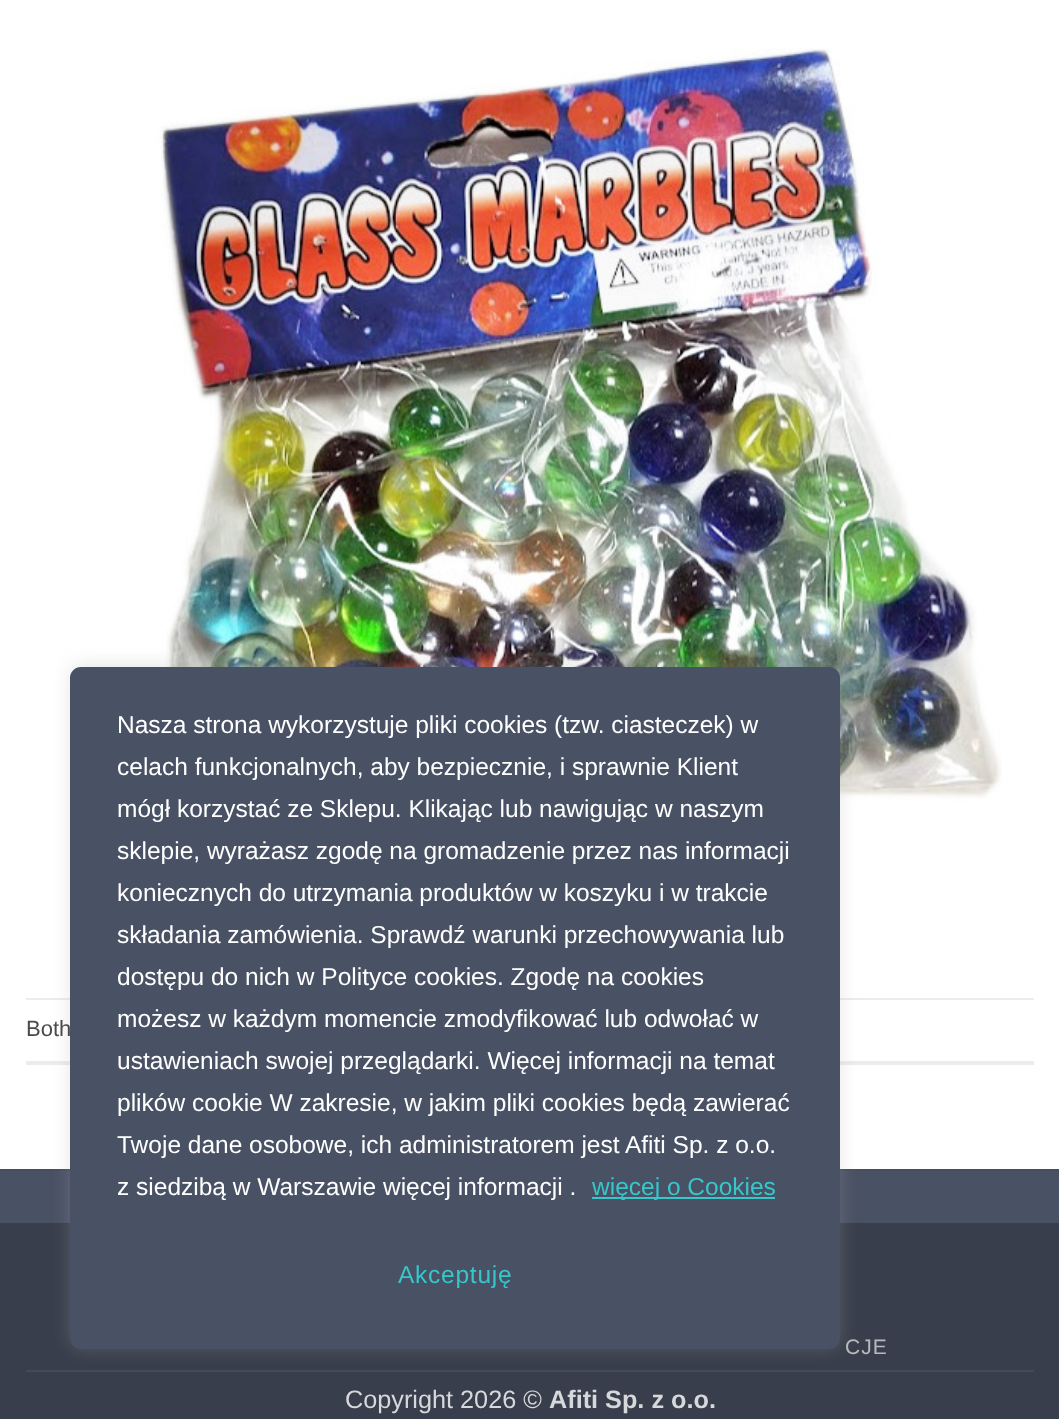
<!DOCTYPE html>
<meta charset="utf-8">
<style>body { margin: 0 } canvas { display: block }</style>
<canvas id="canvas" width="1059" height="1419"></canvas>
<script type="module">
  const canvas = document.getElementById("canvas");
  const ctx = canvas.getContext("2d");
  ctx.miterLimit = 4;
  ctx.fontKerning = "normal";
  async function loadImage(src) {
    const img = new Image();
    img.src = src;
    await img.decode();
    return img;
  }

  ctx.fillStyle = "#ffffff";
  ctx.fillRect(0, 0, 1059, 1419);
  ctx.drawImage(await loadImage("img1.png"), 136, 48, 866, 759);
  ctx.fillStyle = "#ececec";
  ctx.fillRect(26, 998, 1008, 2);
  ctx.fillRect(26, 1061, 1008, 4);
  ctx.fillStyle = "#495164";
  ctx.fillRect(0, 1171, 1059, 52);
  ctx.fillStyle = "#454d5f";
  ctx.fillRect(0, 1169, 1059, 2);
  ctx.fillStyle = "#383e4b";
  ctx.fillRect(0, 1223, 1059, 196);
  ctx.fillStyle = "#454a57";
  ctx.fillRect(26, 1370, 1008, 2);
  ctx.fillStyle = "rgba(172, 171, 171, 0.3)";
  ctx.filter = "blur(9px)";
  ctx.beginPath();
  ctx.roundRect(70, 665, 770, 683, 11);
  ctx.fill();
  ctx.filter = "none";
  ctx.font = "22px Liberation Sans";
  ctx.fillStyle = "#4a4a4a";
  ctx.fillText("Both", 26, 1036);
  ctx.fillStyle = "#495164";
  ctx.beginPath();
  ctx.roundRect(71, 668, 768, 680, 10);
  ctx.fill();
  ctx.strokeStyle = "#495164";
  ctx.lineWidth = 2;
  ctx.stroke();
  ctx.font = "24.5px Liberation Sans";
  ctx.fillStyle = "#ffffff";
  ctx.fillText("Nasza strona wykorzystuje pliki cookies (tzw. ciasteczek) w", 117, 733);
  ctx.fillText("celach funkcjonalnych, aby bezpiecznie, i sprawnie Klient", 117, 775);
  ctx.fillText("mógł korzystać ze Sklepu. Klikając lub nawigując w naszym", 117, 817);
  ctx.fillText("sklepie, wyrażasz zgodę na gromadzenie przez nas informacji", 117, 859);
  ctx.fillText("koniecznych do utrzymania produktów w koszyku i w trakcie", 117, 901);
  ctx.fillText("składania zamówienia. Sprawdź warunki przechowywania lub", 117, 943);
  ctx.fillText("dostępu do nich w Polityce cookies. Zgodę na cookies", 117, 985);
  ctx.fillText("możesz w każdym momencie zmodyfikować lub odwołać w", 117, 1027);
  ctx.fillText("ustawieniach swojej przeglądarki. Więcej informacji na temat", 117, 1069);
  ctx.fillText("plików cookie W zakresie, w jakim pliki cookies będą zawierać", 117, 1111);
  ctx.fillText("Twoje dane osobowe, ich administratorem jest Afiti Sp. z o.o.", 117, 1153);
  ctx.fillText("z siedzibą w Warszawie więcej informacji .", 117, 1195);
  ctx.fillStyle = "#37c6ca";
  ctx.fillRect(592, 1197, 183, 2);
  ctx.fillText("więcej o Cookies", 592, 1195);
  ctx.letterSpacing = "0.75px";
  ctx.fillText("Akceptuję", 398, 1283);
  ctx.letterSpacing = "1px";
  ctx.font = "21px Liberation Sans";
  ctx.fillStyle = "#b7b9be";
  ctx.fillText("CJE", 845, 1354);
  ctx.letterSpacing = "0px";
  ctx.font = "25.25px Liberation Sans";
  ctx.fillStyle = "#d7d8db";
  ctx.fillText("Copyright 2026 ©", 345, 1408);
  ctx.font = "bold 25.25px Liberation Sans";
  ctx.fillText("Afiti Sp. z o.o.", 549, 1408);
</script>
